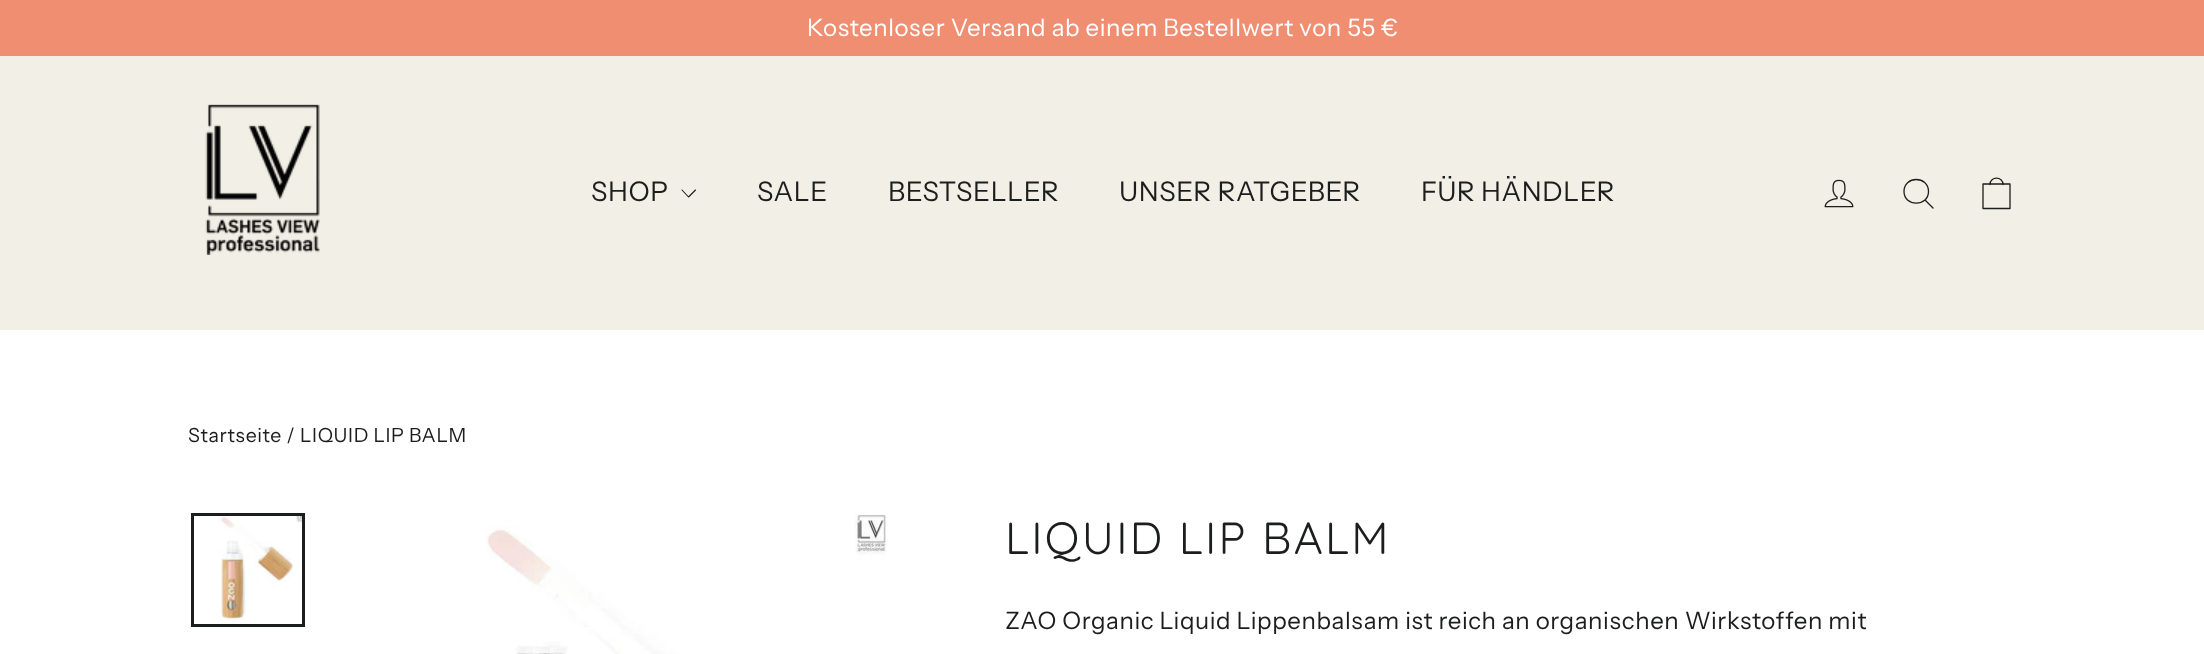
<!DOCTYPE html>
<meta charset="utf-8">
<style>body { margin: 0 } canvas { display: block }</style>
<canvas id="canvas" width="2204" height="654"></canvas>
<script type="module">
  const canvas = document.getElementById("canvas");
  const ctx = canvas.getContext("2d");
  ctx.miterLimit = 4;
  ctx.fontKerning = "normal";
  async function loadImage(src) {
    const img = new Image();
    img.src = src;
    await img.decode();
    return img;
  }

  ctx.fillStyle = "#ffffff";
  ctx.fillRect(0, 0, 2204, 654);
  ctx.fillStyle = "#f08e72";
  ctx.fillRect(0, 0, 2204, 56);
  ctx.letterSpacing = "0.6px";
  ctx.font = "24px Instrument Sans";
  ctx.fillStyle = "#ffffff";
  ctx.fillText("Kostenloser Versand ab einem Bestellwert von 55 €", 807, 36);
  ctx.fillStyle = "#f2efe6";
  ctx.fillRect(0, 56, 2204, 274);
  ctx.drawImage(await loadImage("img1.png"), 205, 104, 115, 151);
  ctx.font = "27px Instrument Sans";
  ctx.fillStyle = "#1c1d1d";
  ctx.fillText("SHOP", 591, 201);
  ctx.beginPath();
  ctx.moveTo(682, 190);
  ctx.lineTo(688.5, 197);
  ctx.lineTo(695.5, 190);
  ctx.strokeStyle = "#1c1d1d";
  ctx.lineWidth = 1.1;
  ctx.lineCap = "round";
  ctx.lineJoin = "round";
  ctx.stroke();
  ctx.fillText("SALE", 757, 201);
  ctx.fillText("BESTSELLER", 888, 201);
  ctx.fillText("UNSER RATGEBER", 1119, 201);
  ctx.fillText("FÜR HÄNDLER", 1421, 201);
  ctx.drawImage(await loadImage("img2.png"), 1824, 179, 30, 29);
  ctx.beginPath();
  ctx.moveTo(1928.5, 191.5);
  ctx.bezierCurveTo(1928.5, 207, 1904, 207, 1904, 191.5);
  ctx.bezierCurveTo(1904, 175.5, 1928.5, 175.5, 1928.5, 191.5);
  ctx.closePath();
  ctx.moveTo(1933, 208);
  ctx.lineTo(1925, 200);
  ctx.lineWidth = 1.3;
  ctx.stroke();
  ctx.beginPath();
  ctx.moveTo(1983, 184);
  ctx.lineTo(2010, 184);
  ctx.lineTo(2010, 208.5);
  ctx.lineTo(1983, 208.5);
  ctx.closePath();
  ctx.moveTo(1990, 184.5);
  ctx.bezierCurveTo(1990, 176, 2003, 176, 2003, 184.5);
  ctx.stroke();
  ctx.font = "19.5px Instrument Sans";
  ctx.fillText("Startseite / LIQUID LIP BALM", 188, 442);
  ctx.drawImage(await loadImage("img3.png"), 218, 516, 84, 106);
  ctx.lineWidth = 3;
  ctx.lineJoin = "miter";
  ctx.strokeRect(192.5, 514.5, 111, 111);
  ctx.drawImage(await loadImage("img4.png"), 486, 514, 401, 140);
  ctx.letterSpacing = "2.25px";
  ctx.font = "45px Quicksand";
  ctx.fillText("LIQUID LIP BALM", 1005, 554);
  ctx.letterSpacing = "0.6px";
  ctx.font = "24px Instrument Sans";
  ctx.fillText("ZAO Organic Liquid Lippenbalsam ist reich an organischen Wirkstoffen mit", 1005, 629);
</script>
